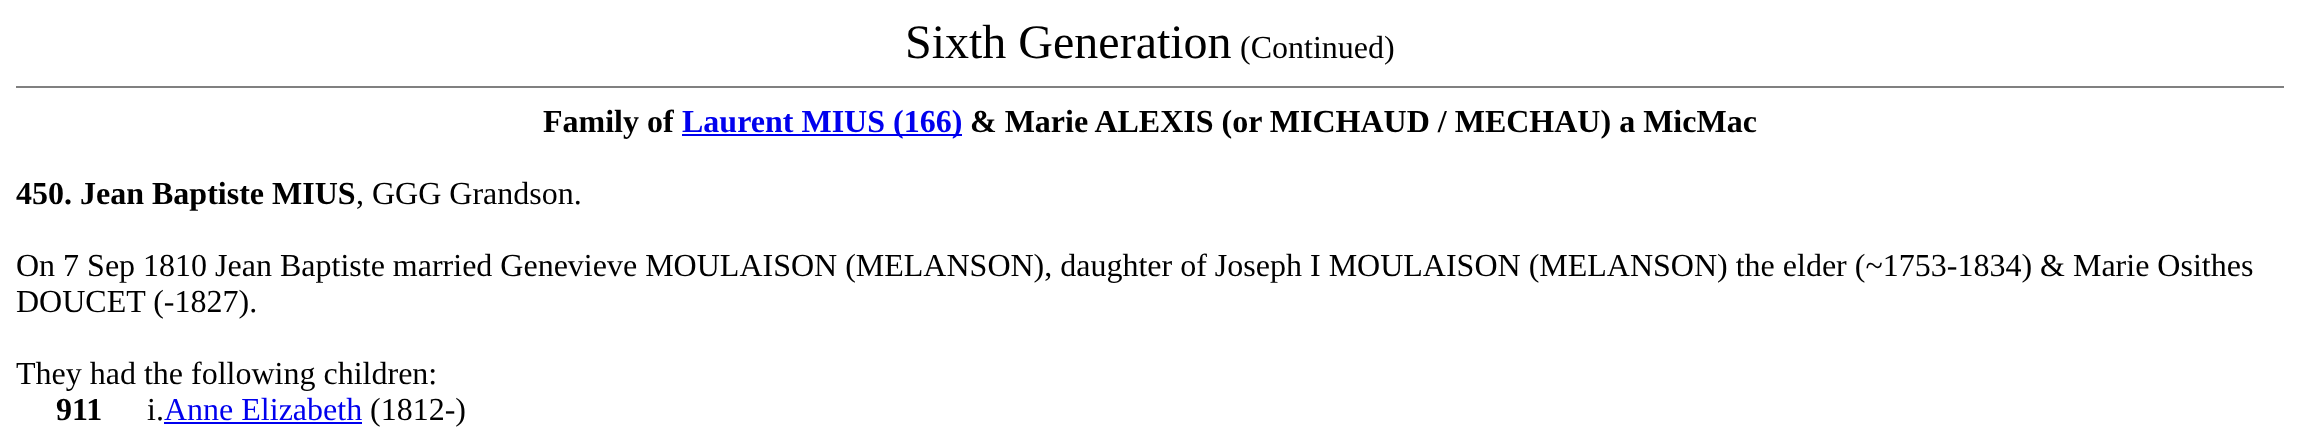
<!DOCTYPE html>
<meta charset="utf-8">
<style>body { margin: 0 } canvas { display: block }</style>
<canvas id="canvas" width="2300" height="427"></canvas>
<script type="module">
  const canvas = document.getElementById("canvas");
  const ctx = canvas.getContext("2d");
  ctx.miterLimit = 4;
  ctx.fontKerning = "normal";

  ctx.fillStyle = "#ffffff";
  ctx.fillRect(0, 0, 2300, 427);
  ctx.font = "48px Liberation Serif";
  ctx.fillStyle = "#000000";
  ctx.fillText("Sixth Generation", 905, 58);
  ctx.font = "32px Liberation Serif";
  ctx.fillText("(Continued)", 1240, 58);
  ctx.fillStyle = "#808080";
  ctx.fillRect(16, 86, 2268, 2);
  ctx.font = "bold 32px Liberation Serif";
  ctx.fillStyle = "#000000";
  ctx.fillText("Family of", 543, 132);
  ctx.fillStyle = "#0000ee";
  ctx.fillRect(682, 134, 280, 2);
  ctx.fillText("Laurent MIUS (166)", 682, 132);
  ctx.fillStyle = "#000000";
  ctx.fillText("& Marie ALEXIS (or MICHAUD / MECHAU) a MicMac", 970, 132);
  ctx.fillText("450. Jean Baptiste MIUS", 16, 204);
  ctx.font = "32px Liberation Serif";
  ctx.fillText(", GGG Grandson.", 356, 204);
  ctx.fillText("On 7 Sep 1810 Jean Baptiste married Genevieve MOULAISON (MELANSON), daughter of Joseph I MOULAISON (MELANSON) the elder (~1753-1834) & Marie Osithes", 16, 276);
  ctx.fillText("DOUCET (-1827).", 16, 312);
  ctx.fillText("They had the following children:", 16, 384);
  ctx.font = "bold 32px Liberation Serif";
  ctx.fillText("911", 56, 420);
  ctx.font = "32px Liberation Serif";
  ctx.fillText("i.", 147, 420);
  ctx.fillStyle = "#0000ee";
  ctx.fillText("Anne Elizabeth", 164, 420);
  ctx.fillRect(164, 422, 198, 2);
  ctx.fillStyle = "#000000";
  ctx.fillText("(1812-)", 370, 420);
</script>
